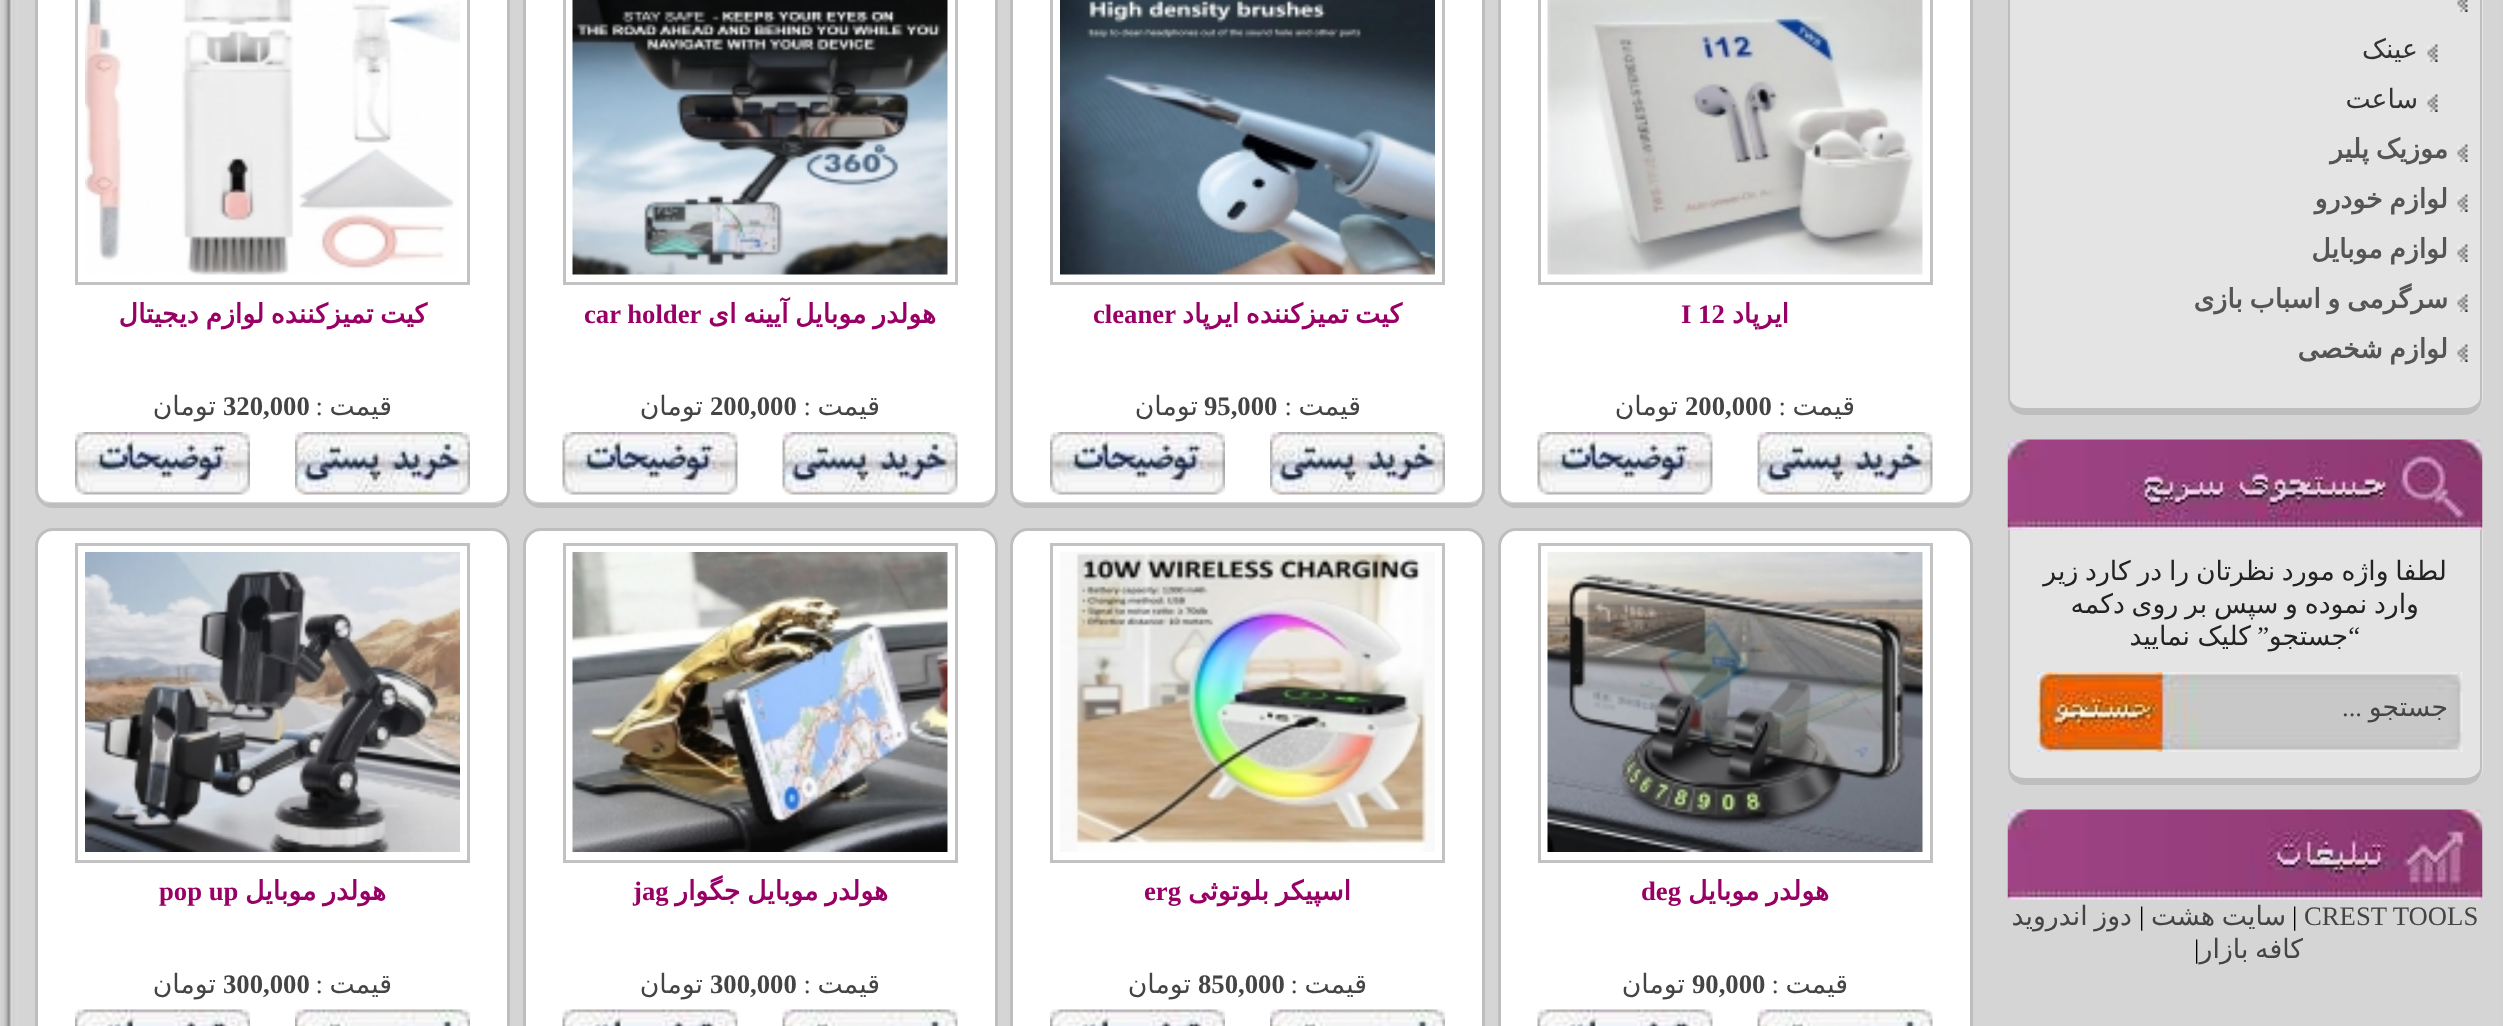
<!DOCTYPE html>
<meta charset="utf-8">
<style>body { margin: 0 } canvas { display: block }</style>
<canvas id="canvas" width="2503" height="1026"></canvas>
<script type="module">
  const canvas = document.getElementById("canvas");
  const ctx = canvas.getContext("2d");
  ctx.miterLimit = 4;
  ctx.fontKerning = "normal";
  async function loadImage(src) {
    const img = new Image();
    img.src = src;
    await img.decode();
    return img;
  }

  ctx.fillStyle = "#ffffff";
  ctx.fillRect(0, 0, 2503, 1026);
  ctx.drawImage(await loadImage("img1.png"), 0, 0, 2503, 1026);
  ctx.fillStyle = "#e4e4e4";
  ctx.beginPath();
  ctx.moveTo(2008, -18);
  ctx.lineTo(2483, -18);
  ctx.lineTo(2483, 397);
  ctx.bezierCurveTo(2483, 407, 2475, 415, 2465, 415);
  ctx.lineTo(2026, 415);
  ctx.bezierCurveTo(2016, 415, 2008, 407, 2008, 397);
  ctx.closePath();
  ctx.fill();
  ctx.fillStyle = "#bebebe";
  ctx.beginPath();
  ctx.moveTo(2008, -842);
  ctx.lineTo(2482, -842);
  ctx.lineTo(2482, 398);
  ctx.bezierCurveTo(2482, 407, 2475, 415, 2465, 415);
  ctx.lineTo(2025, 415);
  ctx.bezierCurveTo(2015, 415, 2008, 407, 2008, 398);
  ctx.closePath();
  ctx.moveTo(2010, -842);
  ctx.lineTo(2480, -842);
  ctx.lineTo(2480, 398);
  ctx.bezierCurveTo(2480, 403, 2473, 408, 2465, 408);
  ctx.lineTo(2025, 408);
  ctx.bezierCurveTo(2017, 408, 2010, 403, 2010, 398);
  ctx.closePath();
  ctx.fill("evenodd");
  ctx.drawImage(await loadImage("img2.png"), 2457, 0, 11, 12);
  ctx.drawImage(await loadImage("img3.png"), 2427, 44, 11, 18);
  ctx.direction = "rtl";
  ctx.font = "26.7px DejaVu Sans";
  ctx.fillStyle = "#333333";
  ctx.fillText("عینک", 2418, 58);
  ctx.drawImage(await loadImage("img3.png"), 2427, 94, 11, 18);
  ctx.fillText("ساعت", 2418, 108);
  ctx.drawImage(await loadImage("img4.png"), 2457, 144, 11, 18);
  ctx.wordSpacing = "-1.75px";
  ctx.font = "bold 26.7px DejaVu Sans";
  ctx.fillStyle = "#555555";
  ctx.fillText("موزیک پلیر", 2448, 158);
  ctx.drawImage(await loadImage("img4.png"), 2457, 194, 11, 18);
  ctx.fillText("لوازم خودرو", 2448, 208);
  ctx.drawImage(await loadImage("img4.png"), 2457, 244, 11, 18);
  ctx.fillText("لوازم موبایل", 2448, 258);
  ctx.drawImage(await loadImage("img4.png"), 2457, 294, 11, 18);
  ctx.fillText("سرگرمی و اسباب بازی", 2448, 308);
  ctx.drawImage(await loadImage("img4.png"), 2457, 344, 11, 18);
  ctx.fillText("لوازم شخصی", 2448, 358);
  ctx.drawImage(await loadImage("img5.png"), 2007, 439, 476, 91);
  ctx.fillStyle = "#e4e4e4";
  ctx.beginPath();
  ctx.roundRect(2008, 530, 475, 255, [0, 0, 18, 18]);
  ctx.fill();
  ctx.fillStyle = "#bebebe";
  ctx.beginPath();
  ctx.moveTo(2008, 530);
  ctx.lineTo(2482, 530);
  ctx.lineTo(2482, 768);
  ctx.bezierCurveTo(2482, 777, 2475, 785, 2465, 785);
  ctx.lineTo(2025, 785);
  ctx.bezierCurveTo(2015, 785, 2008, 777, 2008, 768);
  ctx.closePath();
  ctx.moveTo(2010, 530);
  ctx.lineTo(2480, 530);
  ctx.lineTo(2480, 768);
  ctx.bezierCurveTo(2480, 773, 2473, 778, 2465, 778);
  ctx.lineTo(2025, 778);
  ctx.bezierCurveTo(2017, 778, 2010, 773, 2010, 768);
  ctx.closePath();
  ctx.fill("evenodd");
  ctx.font = "26.7px DejaVu Sans";
  ctx.fillStyle = "#222222";
  ctx.fillText("لطفا واژه مورد نظرتان را در کارد زیر", 2447, 580);
  ctx.fillText("وارد نموده و سپس بر روی دکمه", 2419, 613);
  ctx.wordSpacing = "0px";
  ctx.font = "26.7px Liberation Serif";
  ctx.fillText("“", 2360, 645);
  ctx.fillText("”", 2269, 645);
  ctx.wordSpacing = "-1px";
  ctx.font = "26.7px DejaVu Sans";
  ctx.fillText("کلیک نمایید", 2251, 645);
  ctx.wordSpacing = "0px";
  ctx.fillText("جستجو", 2348, 645);
  ctx.drawImage(await loadImage("img6.png"), 2037, 672, 426, 80);
  ctx.fillStyle = "#444444";
  ctx.fillText("جستجو", 2448, 716);
  ctx.font = "26.7px Liberation Serif";
  ctx.fillText("...", 2362, 716);
  ctx.drawImage(await loadImage("img7.png"), 2007, 809, 476, 91);
  ctx.direction = "ltr";
  ctx.fillText("CREST TOOLS", 2304, 925);
  ctx.fillStyle = "#000000";
  ctx.fillText("|", 2292, 925);
  ctx.wordSpacing = "-1.75px";
  ctx.direction = "rtl";
  ctx.font = "26.7px DejaVu Sans";
  ctx.fillStyle = "#444444";
  ctx.fillText("سایت هشت", 2286, 925);
  ctx.wordSpacing = "0px";
  ctx.direction = "ltr";
  ctx.font = "26.7px Liberation Serif";
  ctx.fillStyle = "#000000";
  ctx.fillText("|", 2139, 925);
  ctx.wordSpacing = "-1.75px";
  ctx.direction = "rtl";
  ctx.font = "26.7px DejaVu Sans";
  ctx.fillStyle = "#444444";
  ctx.fillText("دوز اندروید", 2132, 925);
  ctx.fillText("کافه بازار", 2303, 958);
  ctx.wordSpacing = "0px";
  ctx.direction = "ltr";
  ctx.font = "26.7px Liberation Serif";
  ctx.fillStyle = "#000000";
  ctx.fillText("|", 2194, 958);
  ctx.fillStyle = "#ffffff";
  ctx.beginPath();
  ctx.moveTo(1515, -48);
  ctx.lineTo(1955, -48);
  ctx.bezierCurveTo(1963, -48, 1970, -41, 1970, -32);
  ctx.lineTo(1970, 490);
  ctx.bezierCurveTo(1970, 497, 1963, 502, 1955, 502);
  ctx.lineTo(1515, 502);
  ctx.bezierCurveTo(1507, 502, 1500, 497, 1500, 490);
  ctx.lineTo(1500, -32);
  ctx.bezierCurveTo(1500, -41, 1507, -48, 1515, -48);
  ctx.closePath();
  ctx.fill();
  ctx.beginPath();
  ctx.roundRect(1499.5, -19.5, 472, 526, 16.5);
  ctx.strokeStyle = "#bebebe";
  ctx.lineWidth = 3;
  ctx.stroke();
  ctx.fillStyle = "#bebebe";
  ctx.fillRect(1508, 503, 457, 3);
  ctx.strokeStyle = "#c2c2c2";
  ctx.strokeRect(1539.5, -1.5, 392, 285);
  ctx.drawImage(await loadImage("img8.png"), 1547, 0, 376, 275);
  ctx.direction = "rtl";
  ctx.font = "bold 26.7px DejaVu Sans";
  ctx.fillStyle = "#990066";
  ctx.fillText("ایرپاد", 1789, 323);
  ctx.direction = "ltr";
  ctx.font = "bold 26.7px Liberation Serif";
  ctx.fillText("I 12", 1681, 323);
  ctx.direction = "rtl";
  ctx.font = "26.7px DejaVu Sans";
  ctx.fillStyle = "#444444";
  ctx.fillText("قیمت", 1855, 415);
  ctx.font = "26.7px Liberation Serif";
  ctx.fillText(":", 1786, 415);
  ctx.direction = "ltr";
  ctx.font = "bold 26.7px Liberation Serif";
  ctx.fillText("200,000", 1685, 415);
  ctx.direction = "rtl";
  ctx.font = "26.7px DejaVu Sans";
  ctx.fillText("تومان", 1678, 415);
  ctx.drawImage(await loadImage("img9.png"), 1757, 432, 176, 63);
  ctx.drawImage(await loadImage("img10.png"), 1537, 432, 176, 63);
  ctx.fillStyle = "#ffffff";
  ctx.beginPath();
  ctx.moveTo(1028, -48);
  ctx.lineTo(1468, -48);
  ctx.bezierCurveTo(1476, -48, 1482, -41, 1482, -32);
  ctx.lineTo(1482, 490);
  ctx.bezierCurveTo(1482, 497, 1476, 502, 1468, 502);
  ctx.lineTo(1028, 502);
  ctx.bezierCurveTo(1019, 502, 1012, 497, 1012, 490);
  ctx.lineTo(1012, -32);
  ctx.bezierCurveTo(1012, -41, 1019, -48, 1028, -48);
  ctx.closePath();
  ctx.fill();
  ctx.beginPath();
  ctx.roundRect(1011.5, -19.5, 472, 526, 16.5);
  ctx.strokeStyle = "#bebebe";
  ctx.stroke();
  ctx.fillStyle = "#bebebe";
  ctx.fillRect(1020, 503, 458, 3);
  ctx.strokeStyle = "#c2c2c2";
  ctx.strokeRect(1051.5, -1.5, 392, 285);
  ctx.drawImage(await loadImage("img11.png"), 1060, 0, 375, 275);
  ctx.wordSpacing = "-1.75px";
  ctx.font = "bold 26.7px DejaVu Sans";
  ctx.fillStyle = "#990066";
  ctx.fillText("کیت تمیزکننده ایرپاد", 1402, 323);
  ctx.wordSpacing = "0px";
  ctx.direction = "ltr";
  ctx.font = "bold 26.7px Liberation Serif";
  ctx.fillText("cleaner", 1093, 323);
  ctx.direction = "rtl";
  ctx.font = "26.7px DejaVu Sans";
  ctx.fillStyle = "#444444";
  ctx.fillText("قیمت", 1361, 415);
  ctx.font = "26.7px Liberation Serif";
  ctx.fillText(":", 1292, 415);
  ctx.direction = "ltr";
  ctx.font = "bold 26.7px Liberation Serif";
  ctx.fillText("95,000", 1204, 415);
  ctx.direction = "rtl";
  ctx.font = "26.7px DejaVu Sans";
  ctx.fillText("تومان", 1198, 415);
  ctx.drawImage(await loadImage("img12.png"), 1270, 432, 175, 63);
  ctx.drawImage(await loadImage("img13.png"), 1050, 432, 175, 63);
  ctx.fillStyle = "#ffffff";
  ctx.beginPath();
  ctx.moveTo(540, -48);
  ctx.lineTo(980, -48);
  ctx.bezierCurveTo(988, -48, 995, -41, 995, -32);
  ctx.lineTo(995, 490);
  ctx.bezierCurveTo(995, 497, 988, 502, 980, 502);
  ctx.lineTo(540, 502);
  ctx.bezierCurveTo(532, 502, 525, 497, 525, 490);
  ctx.lineTo(525, -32);
  ctx.bezierCurveTo(525, -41, 532, -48, 540, -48);
  ctx.closePath();
  ctx.fill();
  ctx.beginPath();
  ctx.roundRect(524.5, -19.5, 472, 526, 16.5);
  ctx.strokeStyle = "#bebebe";
  ctx.stroke();
  ctx.fillStyle = "#bebebe";
  ctx.fillRect(533, 503, 457, 3);
  ctx.strokeStyle = "#c2c2c2";
  ctx.strokeRect(564.5, -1.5, 392, 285);
  ctx.drawImage(await loadImage("img14.png"), 572, 0, 376, 275);
  ctx.wordSpacing = "-1.75px";
  ctx.font = "bold 26.7px DejaVu Sans";
  ctx.fillStyle = "#990066";
  ctx.fillText("هولدر موبایل آیینه ای", 936, 323);
  ctx.wordSpacing = "0px";
  ctx.direction = "ltr";
  ctx.font = "bold 26.7px Liberation Serif";
  ctx.fillText("car holder", 584, 323);
  ctx.direction = "rtl";
  ctx.font = "26.7px DejaVu Sans";
  ctx.fillStyle = "#444444";
  ctx.fillText("قیمت", 880, 415);
  ctx.font = "26.7px Liberation Serif";
  ctx.fillText(":", 811, 415);
  ctx.direction = "ltr";
  ctx.font = "bold 26.7px Liberation Serif";
  ctx.fillText("200,000", 710, 415);
  ctx.direction = "rtl";
  ctx.font = "26.7px DejaVu Sans";
  ctx.fillText("تومان", 703, 415);
  ctx.drawImage(await loadImage("img15.png"), 782, 432, 176, 63);
  ctx.drawImage(await loadImage("img16.png"), 562, 432, 176, 63);
  ctx.fillStyle = "#ffffff";
  ctx.beginPath();
  ctx.moveTo(52, -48);
  ctx.lineTo(492, -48);
  ctx.bezierCurveTo(501, -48, 508, -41, 508, -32);
  ctx.lineTo(508, 490);
  ctx.bezierCurveTo(508, 497, 501, 502, 492, 502);
  ctx.lineTo(52, 502);
  ctx.bezierCurveTo(44, 502, 38, 497, 38, 490);
  ctx.lineTo(38, -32);
  ctx.bezierCurveTo(38, -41, 44, -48, 52, -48);
  ctx.closePath();
  ctx.fill();
  ctx.beginPath();
  ctx.roundRect(36.5, -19.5, 472, 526, 16.5);
  ctx.strokeStyle = "#bebebe";
  ctx.stroke();
  ctx.fillStyle = "#bebebe";
  ctx.fillRect(45, 503, 458, 3);
  ctx.strokeStyle = "#c2c2c2";
  ctx.strokeRect(76.5, -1.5, 392, 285);
  ctx.drawImage(await loadImage("img17.png"), 85, 0, 375, 275);
  ctx.wordSpacing = "-1.75px";
  ctx.font = "bold 26.7px DejaVu Sans";
  ctx.fillStyle = "#990066";
  ctx.fillText("کیت تمیزکننده لوازم دیجیتال", 427, 323);
  ctx.wordSpacing = "0px";
  ctx.font = "26.7px DejaVu Sans";
  ctx.fillStyle = "#444444";
  ctx.fillText("قیمت", 392, 415);
  ctx.font = "26.7px Liberation Serif";
  ctx.fillText(":", 323, 415);
  ctx.direction = "ltr";
  ctx.font = "bold 26.7px Liberation Serif";
  ctx.fillText("320,000", 223, 415);
  ctx.direction = "rtl";
  ctx.font = "26.7px DejaVu Sans";
  ctx.fillText("تومان", 216, 415);
  ctx.drawImage(await loadImage("img12.png"), 295, 432, 175, 63);
  ctx.drawImage(await loadImage("img18.png"), 75, 432, 175, 63);
  ctx.fillStyle = "#ffffff";
  ctx.beginPath();
  ctx.moveTo(1515, 530);
  ctx.lineTo(1955, 530);
  ctx.bezierCurveTo(1963, 530, 1970, 537, 1970, 545);
  ctx.lineTo(1970, 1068);
  ctx.bezierCurveTo(1970, 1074, 1963, 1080, 1955, 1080);
  ctx.lineTo(1515, 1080);
  ctx.bezierCurveTo(1507, 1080, 1500, 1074, 1500, 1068);
  ctx.lineTo(1500, 545);
  ctx.bezierCurveTo(1500, 537, 1507, 530, 1515, 530);
  ctx.closePath();
  ctx.fill();
  ctx.beginPath();
  ctx.roundRect(1499.5, 529.5, 472, 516, 16.5);
  ctx.strokeStyle = "#bebebe";
  ctx.stroke();
  ctx.strokeStyle = "#c2c2c2";
  ctx.strokeRect(1539.5, 544.5, 392, 317);
  ctx.drawImage(await loadImage("img19.png"), 1547, 552, 376, 300);
  ctx.wordSpacing = "-1.75px";
  ctx.font = "bold 26.7px DejaVu Sans";
  ctx.fillStyle = "#990066";
  ctx.fillText("هولدر موبایل", 1829, 900);
  ctx.wordSpacing = "0px";
  ctx.direction = "ltr";
  ctx.font = "bold 26.7px Liberation Serif";
  ctx.fillText("deg", 1641, 900);
  ctx.direction = "rtl";
  ctx.font = "26.7px DejaVu Sans";
  ctx.fillStyle = "#444444";
  ctx.fillText("قیمت", 1848, 993);
  ctx.font = "26.7px Liberation Serif";
  ctx.fillText(":", 1779, 993);
  ctx.direction = "ltr";
  ctx.font = "bold 26.7px Liberation Serif";
  ctx.fillText("90,000", 1692, 993);
  ctx.direction = "rtl";
  ctx.font = "26.7px DejaVu Sans";
  ctx.fillText("تومان", 1685, 993);
  ctx.drawImage(await loadImage("img20.png"), 1757, 1009, 176, 17);
  ctx.drawImage(await loadImage("img21.png"), 1537, 1009, 176, 17);
  ctx.fillStyle = "#ffffff";
  ctx.beginPath();
  ctx.moveTo(1028, 530);
  ctx.lineTo(1468, 530);
  ctx.bezierCurveTo(1476, 530, 1482, 537, 1482, 545);
  ctx.lineTo(1482, 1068);
  ctx.bezierCurveTo(1482, 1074, 1476, 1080, 1468, 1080);
  ctx.lineTo(1028, 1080);
  ctx.bezierCurveTo(1019, 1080, 1012, 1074, 1012, 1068);
  ctx.lineTo(1012, 545);
  ctx.bezierCurveTo(1012, 537, 1019, 530, 1028, 530);
  ctx.closePath();
  ctx.fill();
  ctx.beginPath();
  ctx.roundRect(1011.5, 529.5, 472, 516, 16.5);
  ctx.strokeStyle = "#bebebe";
  ctx.stroke();
  ctx.strokeStyle = "#c2c2c2";
  ctx.strokeRect(1051.5, 544.5, 392, 317);
  ctx.drawImage(await loadImage("img22.png"), 1060, 552, 375, 300);
  ctx.wordSpacing = "-1.75px";
  ctx.font = "bold 26.7px DejaVu Sans";
  ctx.fillStyle = "#990066";
  ctx.fillText("اسپیکر بلوتوثی", 1351, 900);
  ctx.wordSpacing = "0px";
  ctx.direction = "ltr";
  ctx.font = "bold 26.7px Liberation Serif";
  ctx.fillText("erg", 1144, 900);
  ctx.direction = "rtl";
  ctx.font = "26.7px DejaVu Sans";
  ctx.fillStyle = "#444444";
  ctx.fillText("قیمت", 1367, 993);
  ctx.font = "26.7px Liberation Serif";
  ctx.fillText(":", 1298, 993);
  ctx.direction = "ltr";
  ctx.font = "bold 26.7px Liberation Serif";
  ctx.fillText("850,000", 1198, 993);
  ctx.direction = "rtl";
  ctx.font = "26.7px DejaVu Sans";
  ctx.fillText("تومان", 1191, 993);
  ctx.drawImage(await loadImage("img23.png"), 1270, 1009, 175, 17);
  ctx.drawImage(await loadImage("img24.png"), 1050, 1009, 175, 17);
  ctx.fillStyle = "#ffffff";
  ctx.beginPath();
  ctx.moveTo(540, 530);
  ctx.lineTo(980, 530);
  ctx.bezierCurveTo(988, 530, 995, 537, 995, 545);
  ctx.lineTo(995, 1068);
  ctx.bezierCurveTo(995, 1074, 988, 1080, 980, 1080);
  ctx.lineTo(540, 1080);
  ctx.bezierCurveTo(532, 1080, 525, 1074, 525, 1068);
  ctx.lineTo(525, 545);
  ctx.bezierCurveTo(525, 537, 532, 530, 540, 530);
  ctx.closePath();
  ctx.fill();
  ctx.beginPath();
  ctx.roundRect(524.5, 529.5, 472, 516, 16.5);
  ctx.strokeStyle = "#bebebe";
  ctx.stroke();
  ctx.strokeStyle = "#c2c2c2";
  ctx.strokeRect(564.5, 544.5, 392, 317);
  ctx.drawImage(await loadImage("img25.png"), 572, 552, 376, 300);
  ctx.wordSpacing = "-1.75px";
  ctx.font = "bold 26.7px DejaVu Sans";
  ctx.fillStyle = "#990066";
  ctx.fillText("هولدر موبایل جگوار", 888, 900);
  ctx.wordSpacing = "0px";
  ctx.direction = "ltr";
  ctx.font = "bold 26.7px Liberation Serif";
  ctx.fillText("jag", 633, 900);
  ctx.direction = "rtl";
  ctx.font = "26.7px DejaVu Sans";
  ctx.fillStyle = "#444444";
  ctx.fillText("قیمت", 880, 993);
  ctx.font = "26.7px Liberation Serif";
  ctx.fillText(":", 811, 993);
  ctx.direction = "ltr";
  ctx.font = "bold 26.7px Liberation Serif";
  ctx.fillText("300,000", 710, 993);
  ctx.direction = "rtl";
  ctx.font = "26.7px DejaVu Sans";
  ctx.fillText("تومان", 703, 993);
  ctx.drawImage(await loadImage("img26.png"), 782, 1009, 176, 17);
  ctx.drawImage(await loadImage("img27.png"), 562, 1009, 176, 17);
  ctx.fillStyle = "#ffffff";
  ctx.beginPath();
  ctx.moveTo(52, 530);
  ctx.lineTo(492, 530);
  ctx.bezierCurveTo(501, 530, 508, 537, 508, 545);
  ctx.lineTo(508, 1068);
  ctx.bezierCurveTo(508, 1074, 501, 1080, 492, 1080);
  ctx.lineTo(52, 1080);
  ctx.bezierCurveTo(44, 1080, 38, 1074, 38, 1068);
  ctx.lineTo(38, 545);
  ctx.bezierCurveTo(38, 537, 44, 530, 52, 530);
  ctx.closePath();
  ctx.fill();
  ctx.beginPath();
  ctx.roundRect(36.5, 529.5, 472, 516, 16.5);
  ctx.strokeStyle = "#bebebe";
  ctx.stroke();
  ctx.strokeStyle = "#c2c2c2";
  ctx.strokeRect(76.5, 544.5, 392, 317);
  ctx.drawImage(await loadImage("img28.png"), 85, 552, 375, 300);
  ctx.wordSpacing = "-1.75px";
  ctx.font = "bold 26.7px DejaVu Sans";
  ctx.fillStyle = "#990066";
  ctx.fillText("هولدر موبایل", 386, 900);
  ctx.wordSpacing = "0px";
  ctx.direction = "ltr";
  ctx.font = "bold 26.7px Liberation Serif";
  ctx.fillText("pop up", 159, 900);
  ctx.direction = "rtl";
  ctx.font = "26.7px DejaVu Sans";
  ctx.fillStyle = "#444444";
  ctx.fillText("قیمت", 392, 993);
  ctx.font = "26.7px Liberation Serif";
  ctx.fillText(":", 323, 993);
  ctx.direction = "ltr";
  ctx.font = "bold 26.7px Liberation Serif";
  ctx.fillText("300,000", 223, 993);
  ctx.direction = "rtl";
  ctx.font = "26.7px DejaVu Sans";
  ctx.fillText("تومان", 216, 993);
  ctx.drawImage(await loadImage("img23.png"), 295, 1009, 175, 17);
  ctx.drawImage(await loadImage("img29.png"), 75, 1009, 175, 17);
</script>
